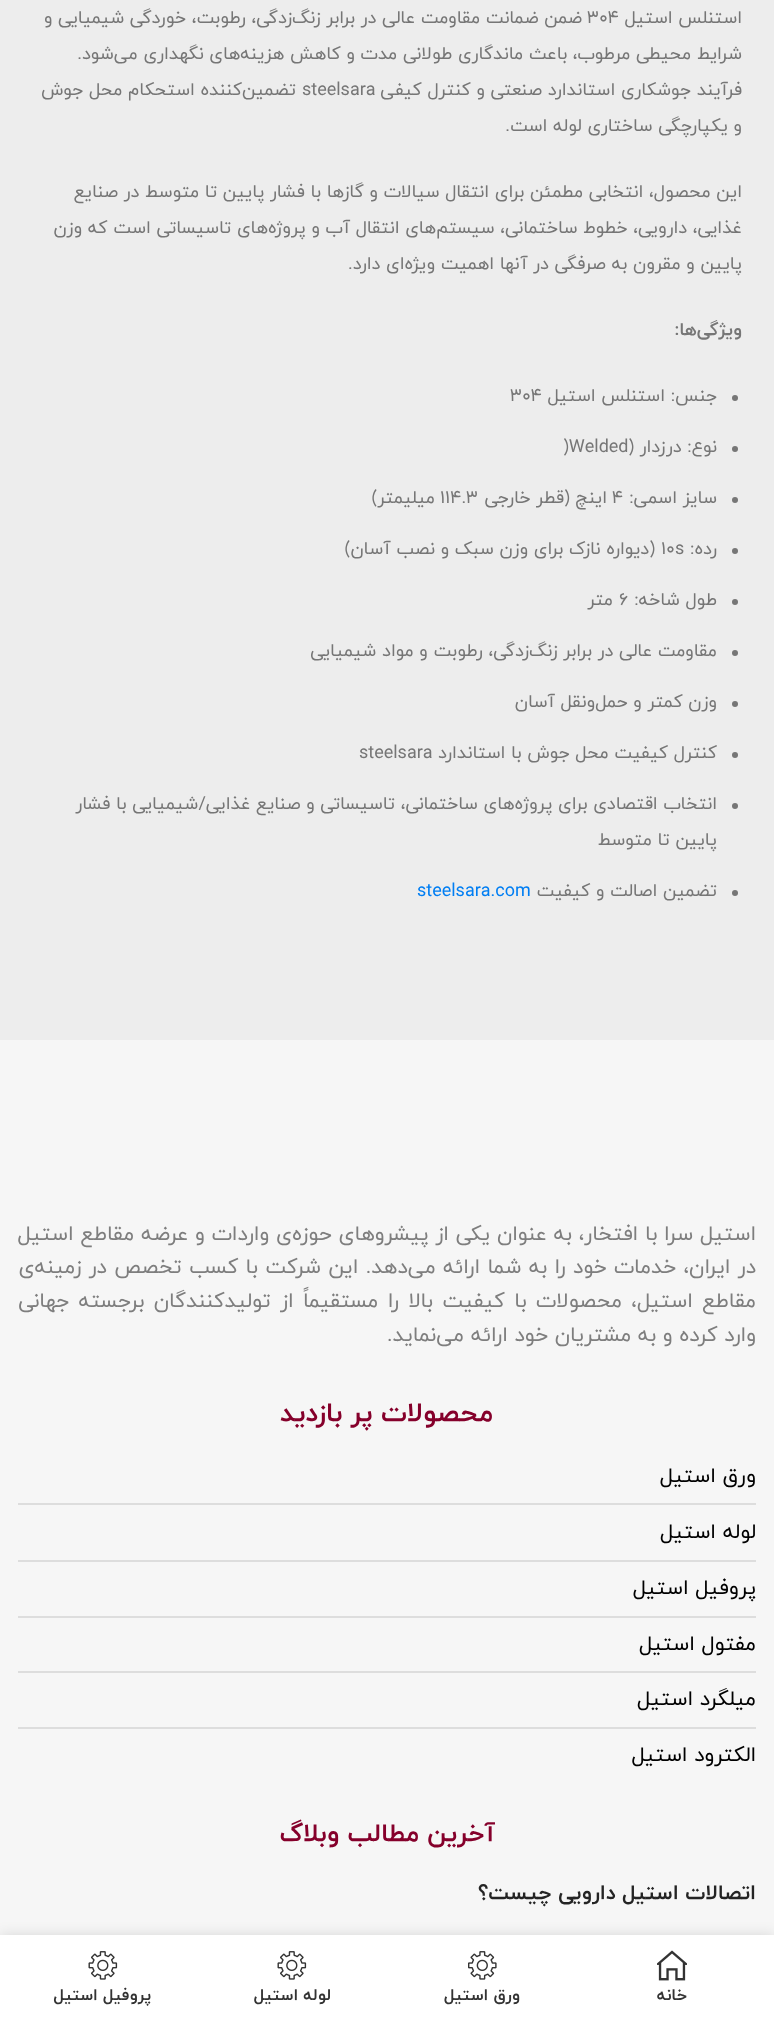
<!DOCTYPE html>
<meta charset="utf-8">
<style>body { margin: 0 } canvas { display: block }</style>
<canvas id="canvas" width="774" height="2017"></canvas>
<script type="module">
  const canvas = document.getElementById("canvas");
  const ctx = canvas.getContext("2d");
  ctx.miterLimit = 4;
  ctx.fontKerning = "normal";
  async function loadImage(src) {
    const img = new Image();
    img.src = src;
    await img.decode();
    return img;
  }

  ctx.fillStyle = "#ededed";
  ctx.fillRect(0, 0, 774, 2017);
  ctx.direction = "rtl";
  ctx.font = "18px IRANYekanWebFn";
  ctx.fillStyle = "#767676";
  ctx.fillText("استنلس استیل", 742, 23);
  ctx.direction = "ltr";
  ctx.fillText("304", 587, 23);
  ctx.direction = "rtl";
  ctx.fillText("ضمن ضمانت مقاومت عالی در برابر زنگ‌زدگی، رطوبت، خوردگی شیمیایی و", 582, 23);
  ctx.fillText("شرایط محیطی مرطوب، باعث ماندگاری طولانی مدت و کاهش هزینه‌های نگهداری می‌شود.", 742, 59);
  ctx.fillText("فرآیند جوشکاری استاندارد صنعتی و کنترل کیفی", 742, 95);
  ctx.direction = "ltr";
  ctx.fillText("steelsara", 302, 95);
  ctx.direction = "rtl";
  ctx.fillText("تضمین‌کننده استحکام محل جوش", 296, 95);
  ctx.fillText("و یکپارچگی ساختاری لوله است.", 742, 131);
  ctx.fillText("این محصول، انتخابی مطمئن برای انتقال سیالات و گازها با فشار پایین تا متوسط در صنایع", 742, 197);
  ctx.fillText("غذایی، دارویی، خطوط ساختمانی، سیستم‌های انتقال آب و پروژه‌های تاسیساتی است که وزن", 742, 233);
  ctx.fillText("پایین و مقرون به صرفگی در آنها اهمیت ویژه‌ای دارد.", 742, 269);
  ctx.font = "bold 18px IRANYekanWebFn";
  ctx.fillText("ویژگی‌ها:", 742, 335);
  ctx.beginPath();
  ctx.arc(735, 398, 3, 0, Math.PI * 2);
  ctx.fill();
  ctx.font = "18px IRANYekanWebFn";
  ctx.fillText("جنس: استنلس استیل", 717, 401);
  ctx.direction = "ltr";
  ctx.fillText("304", 510, 401);
  ctx.beginPath();
  ctx.arc(735, 449, 3, 0, Math.PI * 2);
  ctx.fill();
  ctx.direction = "rtl";
  ctx.fillText("نوع: درزدار (", 717, 452);
  ctx.direction = "ltr";
  ctx.fillText(")Welded", 563, 452);
  ctx.beginPath();
  ctx.arc(735, 500, 3, 0, Math.PI * 2);
  ctx.fill();
  ctx.direction = "rtl";
  ctx.fillText("سایز اسمی:", 717, 503);
  ctx.direction = "ltr";
  ctx.fillText("4", 612, 503);
  ctx.direction = "rtl";
  ctx.fillText("اینچ (قطر خارجی", 607, 503);
  ctx.direction = "ltr";
  ctx.fillText("114.3", 440, 503);
  ctx.direction = "rtl";
  ctx.fillText("میلیمتر)", 435, 503);
  ctx.beginPath();
  ctx.arc(735, 551, 3, 0, Math.PI * 2);
  ctx.fill();
  ctx.fillText("رده:", 717, 554);
  ctx.direction = "ltr";
  ctx.fillText("10s", 661, 554);
  ctx.direction = "rtl";
  ctx.fillText("(دیواره نازک برای وزن سبک و نصب آسان)", 655, 554);
  ctx.beginPath();
  ctx.arc(735, 602, 3, 0, Math.PI * 2);
  ctx.fill();
  ctx.fillText("طول شاخه:", 717, 605);
  ctx.direction = "ltr";
  ctx.fillText("6", 619, 605);
  ctx.direction = "rtl";
  ctx.fillText("متر", 613, 605);
  ctx.beginPath();
  ctx.arc(735, 653, 3, 0, Math.PI * 2);
  ctx.fill();
  ctx.fillText("مقاومت عالی در برابر زنگ‌زدگی، رطوبت و مواد شیمیایی", 717, 656);
  ctx.beginPath();
  ctx.arc(735, 704, 3, 0, Math.PI * 2);
  ctx.fill();
  ctx.fillText("وزن کمتر و حمل‌ونقل آسان", 717, 707);
  ctx.beginPath();
  ctx.arc(735, 755, 3, 0, Math.PI * 2);
  ctx.fill();
  ctx.fillText("کنترل کیفیت محل جوش با استاندارد", 717, 758);
  ctx.direction = "ltr";
  ctx.fillText("steelsara", 359, 758);
  ctx.beginPath();
  ctx.arc(735, 806, 3, 0, Math.PI * 2);
  ctx.fill();
  ctx.direction = "rtl";
  ctx.fillText("انتخاب اقتصادی برای پروژه‌های ساختمانی، تاسیساتی و صنایع غذایی/شیمیایی با فشار", 717, 809);
  ctx.fillText("پایین تا متوسط", 717, 845);
  ctx.beginPath();
  ctx.arc(735, 893, 3, 0, Math.PI * 2);
  ctx.fill();
  ctx.fillText("تضمین اصالت و کیفیت", 717, 896);
  ctx.direction = "ltr";
  ctx.fillStyle = "#007ef3";
  ctx.fillText("steelsara.com", 417, 896);
  ctx.fillStyle = "#f6f6f6";
  ctx.fillRect(0, 1040, 774, 895);
  ctx.wordSpacing = "0.2px";
  ctx.direction = "rtl";
  ctx.font = "21px IRANYekanWebFn";
  ctx.fillStyle = "#7e7e7e";
  ctx.fillText("استیل سرا با افتخار، به عنوان یکی از پیشروهای حوزه‌ی واردات و عرضه مقاطع استیل", 756, 1240);
  ctx.wordSpacing = "0.75px";
  ctx.fillText("در ایران، خدمات خود را به شما ارائه می‌دهد. این شرکت با کسب تخصص در زمینه‌ی", 756, 1273);
  ctx.wordSpacing = "2.75px";
  ctx.fillText("مقاطع استیل، محصولات با کیفیت بالا را مستقیماً از تولیدکنندگان برجسته جهانی", 756, 1307);
  ctx.wordSpacing = "0px";
  ctx.fillText("وارد کرده و به مشتریان خود ارائه می‌نماید.", 756, 1341);
  ctx.font = "bold 27px IRANYekanWebFn";
  ctx.fillStyle = "#85002b";
  ctx.fillText("محصولات پر بازدید", 493, 1421);
  ctx.font = "21px IRANYekanWebFn";
  ctx.fillStyle = "#000000";
  ctx.fillText("ورق استیل", 756, 1482);
  ctx.fillStyle = "#dddddd";
  ctx.fillRect(18, 1503, 738, 2);
  ctx.fillStyle = "#000000";
  ctx.fillText("لوله استیل", 756, 1538);
  ctx.fillStyle = "#dddddd";
  ctx.fillRect(18, 1560, 738, 2);
  ctx.fillStyle = "#000000";
  ctx.fillText("پروفیل استیل", 756, 1594);
  ctx.fillStyle = "#dddddd";
  ctx.fillRect(18, 1616, 738, 2);
  ctx.fillStyle = "#000000";
  ctx.fillText("مفتول استیل", 756, 1650);
  ctx.fillStyle = "#dddddd";
  ctx.fillRect(18, 1671, 738, 2);
  ctx.fillStyle = "#000000";
  ctx.fillText("میلگرد استیل", 756, 1705);
  ctx.fillStyle = "#dddddd";
  ctx.fillRect(18, 1727, 738, 2);
  ctx.fillStyle = "#000000";
  ctx.fillText("الکترود استیل", 756, 1761);
  ctx.font = "bold 25.5px IRANYekanWebFn";
  ctx.fillStyle = "#85002b";
  ctx.fillText("آخرین مطالب وبلاگ", 495, 1841);
  ctx.font = "bold 21px IRANYekanWebFn";
  ctx.fillStyle = "#242424";
  ctx.fillText("اتصالات استیل دارویی چیست؟", 756, 1899);
  ctx.fillStyle = "rgba(0, 0, 0, 0.12)";
  ctx.filter = "blur(7px)";
  ctx.beginPath();
  ctx.rect(0, 1935, 774, 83);
  ctx.fill();
  ctx.filter = "none";
  ctx.fillStyle = "#ffffff";
  ctx.fillRect(0, 1935, 774, 82);
  ctx.drawImage(await loadImage("img1.png"), 657, 1950, 30, 31);
  ctx.font = "bold 16.5px IRANYekanWebFn";
  ctx.fillStyle = "#333333";
  ctx.fillText("خانه", 687, 2000);
  ctx.drawImage(await loadImage("img2.png"), 468, 1951, 29, 29);
  ctx.fillText("ورق استیل", 520, 2000);
  ctx.drawImage(await loadImage("img3.png"), 277, 1951, 30, 29);
  ctx.fillText("لوله استیل", 331, 2000);
  ctx.drawImage(await loadImage("img3.png"), 88, 1951, 30, 29);
  ctx.fillText("پروفیل استیل", 151, 2000);
</script>
